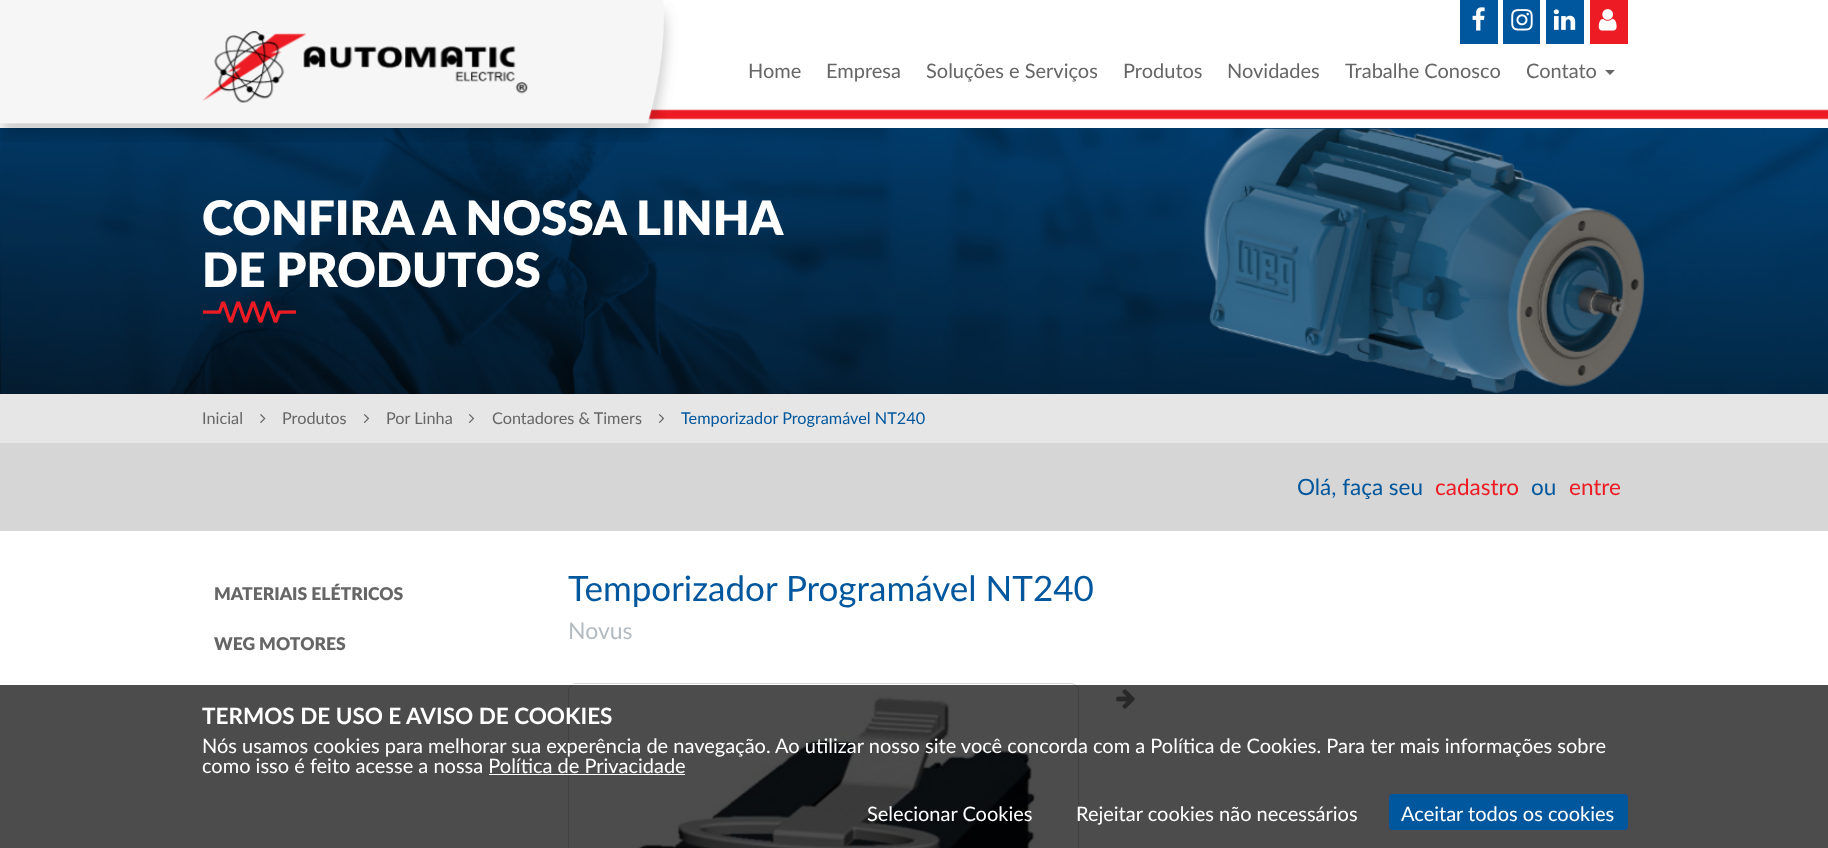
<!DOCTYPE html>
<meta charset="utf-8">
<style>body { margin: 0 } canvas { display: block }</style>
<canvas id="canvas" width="1828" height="848"></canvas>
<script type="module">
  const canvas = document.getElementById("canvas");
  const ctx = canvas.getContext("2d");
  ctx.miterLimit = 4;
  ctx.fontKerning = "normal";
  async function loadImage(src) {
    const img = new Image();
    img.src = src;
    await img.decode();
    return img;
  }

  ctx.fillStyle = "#ffffff";
  ctx.fillRect(0, 0, 1828, 848);
  ctx.drawImage(await loadImage("img13.png"), 0, 128, 1828, 266);
  ctx.drawImage(await loadImage("img7.png"), 1203, 128, 442, 265);
  ctx.drawImage(await loadImage("img1.png"), 0, 0, 1828, 142);
  ctx.drawImage(await loadImage("img2.png"), 202, 31, 326, 72);
  ctx.fillStyle = "#00579d";
  ctx.fillRect(1460, 0, 38, 44);
  ctx.drawImage(await loadImage("img3.png"), 1472, 7, 13, 24);
  ctx.fillRect(1503, 0, 37, 44);
  ctx.drawImage(await loadImage("img4.png"), 1511, 9, 22, 22);
  ctx.fillRect(1546, 0, 38, 44);
  ctx.drawImage(await loadImage("img5.png"), 1553, 9, 23, 21);
  ctx.fillStyle = "#ed1c24";
  ctx.fillRect(1590, 0, 38, 44);
  ctx.drawImage(await loadImage("img6.png"), 1598, 9, 19, 22);
  ctx.font = "20px Lato";
  ctx.fillStyle = "#666666";
  ctx.fillText("Home", 748, 78);
  ctx.fillText("Empresa", 826, 78);
  ctx.fillText("Soluções e Serviços", 926, 78);
  ctx.fillText("Produtos", 1123, 78);
  ctx.fillText("Novidades", 1227, 78);
  ctx.fillText("Trabalhe Conosco", 1345, 78);
  ctx.fillText("Contato", 1526, 78);
  ctx.beginPath();
  ctx.moveTo(1605, 70);
  ctx.lineTo(1615, 70);
  ctx.lineTo(1610, 75);
  ctx.closePath();
  ctx.fill();
  ctx.font = "900 47.5px Lato";
  ctx.fillStyle = "#ffffff";
  ctx.fillText("CONFIRA A NOSSA LINHA", 202, 235);
  ctx.fillText("DE PRODUTOS", 202, 287);
  ctx.drawImage(await loadImage("img8.png"), 203, 301, 93, 22);
  ctx.fillStyle = "#e6e6e6";
  ctx.fillRect(0, 394, 1828, 49);
  ctx.font = "16.25px Lato";
  ctx.fillStyle = "#666666";
  ctx.fillText("Inicial", 202, 424);
  ctx.drawImage(await loadImage("img9.png"), 260, 414, 6, 9);
  ctx.fillText("Produtos", 282, 424);
  ctx.drawImage(await loadImage("img10.png"), 363, 414, 7, 9);
  ctx.fillText("Por Linha", 386, 424);
  ctx.drawImage(await loadImage("img10.png"), 468, 414, 7, 9);
  ctx.fillText("Contadores & Timers", 492, 424);
  ctx.drawImage(await loadImage("img10.png"), 658, 414, 7, 9);
  ctx.fillStyle = "#00579d";
  ctx.fillText("Temporizador Programável NT240", 681, 424);
  ctx.fillStyle = "#d6d6d6";
  ctx.fillRect(0, 443, 1828, 88);
  ctx.font = "22.5px Lato";
  ctx.fillStyle = "#00579d";
  ctx.fillText("Olá, faça seu", 1297, 495);
  ctx.fillStyle = "#ed1c24";
  ctx.fillText("cadastro", 1435, 495);
  ctx.fillStyle = "#00579d";
  ctx.fillText("ou", 1531, 495);
  ctx.fillStyle = "#ed1c24";
  ctx.fillText("entre", 1569, 495);
  ctx.font = "900 17.5px Lato";
  ctx.fillStyle = "#666666";
  ctx.fillText("MATERIAIS ELÉTRICOS", 214, 600);
  ctx.fillText("WEG MOTORES", 214, 650);
  ctx.font = "35px 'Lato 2'";
  ctx.fillStyle = "#00579d";
  ctx.fillText("Temporizador Programável NT240", 568, 601);
  ctx.font = "23px 'Lato 2'";
  ctx.fillStyle = "#b4bcc2";
  ctx.fillText("Novus", 568, 639);
  ctx.beginPath();
  ctx.roundRect(568.5, 683.5, 510, 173, 7.5);
  ctx.strokeStyle = "#d6d6d6";
  ctx.stroke();
  ctx.drawImage(await loadImage("img11.png"), 572, 684, 469, 164);
  ctx.drawImage(await loadImage("img12.png"), 1116, 689, 19, 20);
  ctx.fillStyle = "rgba(0, 0, 0, 0.7)";
  ctx.fillRect(0, 685, 1828, 163);
  ctx.font = "bold 22.5px Lato";
  ctx.fillStyle = "#ffffff";
  ctx.fillText("TERMOS DE USO E AVISO DE COOKIES", 202, 724);
  ctx.font = "20px Lato";
  ctx.fillText("Nós usamos cookies para melhorar sua experência de navegação. Ao utilizar nosso site você concorda com a Política de Cookies. Para ter mais informações sobre", 202, 753);
  ctx.fillText("como isso é feito acesse a nossa Política de Privacidade", 202, 773);
  ctx.fillRect(489, 774, 196, 1);
  ctx.fillText("Selecionar Cookies", 867, 821);
  ctx.fillText("Rejeitar cookies não necessários", 1076, 821);
  ctx.fillStyle = "#00579d";
  ctx.beginPath();
  ctx.roundRect(1389, 794, 239, 36, 4);
  ctx.fill();
  ctx.fillStyle = "#ffffff";
  ctx.fillText("Aceitar todos os cookies", 1401, 821);
</script>
